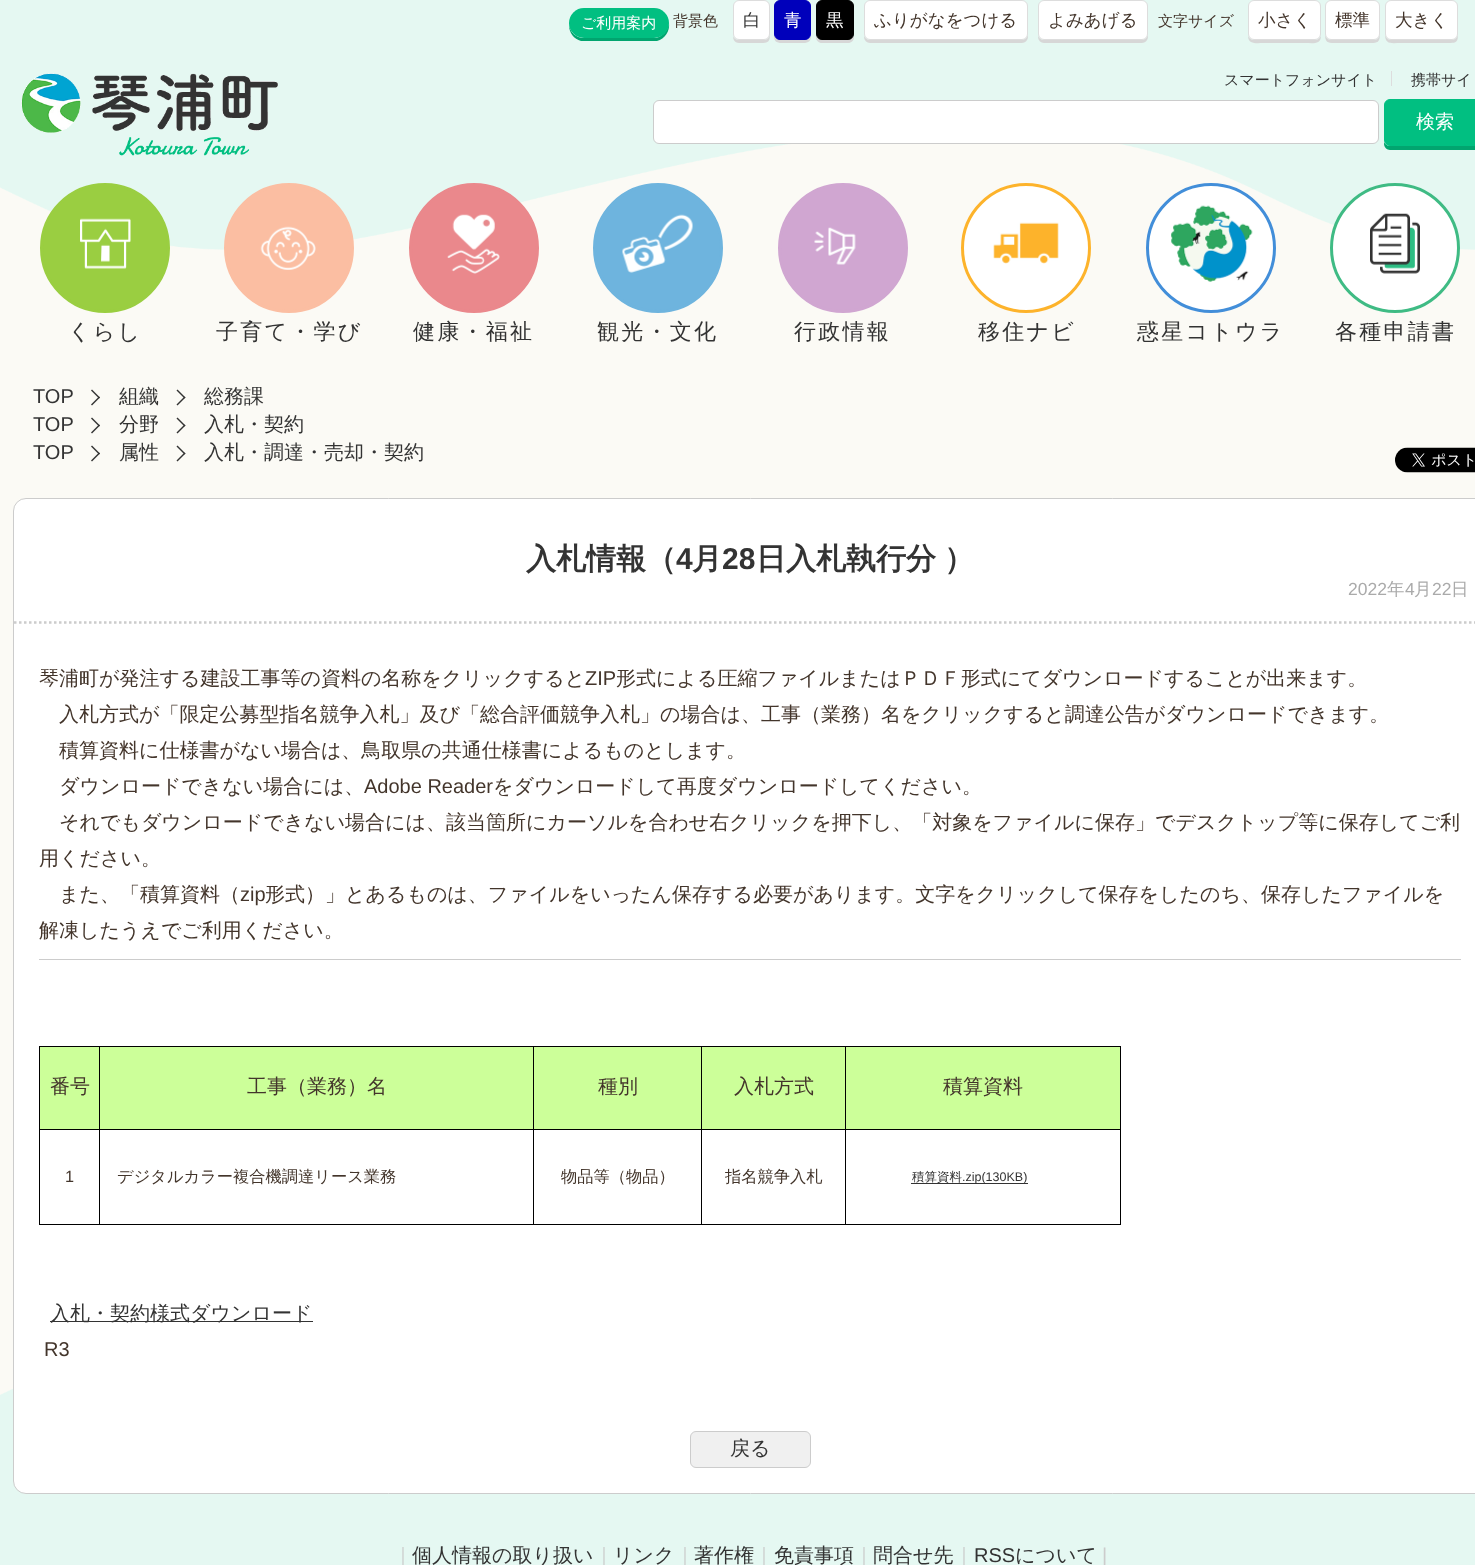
<!DOCTYPE html>
<meta charset="utf-8">
<style>body { margin: 0 } canvas { display: block }</style>
<canvas id="canvas" width="1475" height="1565"></canvas>
<script type="module">
  const canvas = document.getElementById("canvas");
  const ctx = canvas.getContext("2d");
  ctx.miterLimit = 4;
  ctx.fontKerning = "normal";
  async function loadImage(src) {
    const img = new Image();
    img.src = src;
    await img.decode();
    return img;
  }

  ctx.fillStyle = "#fbfaf5";
  ctx.fillRect(0, 0, 1475, 1565);
  ctx.drawImage(await loadImage("img1.png"), 0, 0, 1475, 250);
  ctx.fillStyle = "#01a56f";
  ctx.beginPath();
  ctx.moveTo(569, 25);
  ctx.bezierCurveTo(569, 33, 574, 39, 581, 41);
  ctx.lineTo(657, 41);
  ctx.bezierCurveTo(665, 39, 670, 31, 669, 23);
  ctx.bezierCurveTo(668, 31, 662, 38, 654, 38);
  ctx.lineTo(584, 38);
  ctx.bezierCurveTo(576, 38, 570, 32, 569, 25);
  ctx.closePath();
  ctx.fill();
  ctx.fillStyle = "#01bf81";
  ctx.beginPath();
  ctx.roundRect(569, 8, 100, 30, 15);
  ctx.fill();
  ctx.font = "500 15px WenQuanYi Zen Hei";
  ctx.fillStyle = "#ffffff";
  ctx.fillText("ご利用案内", 581, 28);
  ctx.fillStyle = "#43352b";
  ctx.fillText("背景色", 673, 26);
  ctx.fillStyle = "#d7d7d7";
  ctx.beginPath();
  ctx.moveTo(733, 36);
  ctx.bezierCurveTo(733, 43, 737.5, 43, 743, 43);
  ctx.lineTo(760, 43);
  ctx.bezierCurveTo(768.5, 43, 770, 42, 770, 34);
  ctx.bezierCurveTo(770, 37, 767, 40, 764, 40);
  ctx.lineTo(739, 40);
  ctx.bezierCurveTo(736, 40, 734, 38.5, 733, 36);
  ctx.closePath();
  ctx.fill();
  ctx.fillStyle = "#ffffff";
  ctx.beginPath();
  ctx.roundRect(733.5, 0.5, 36, 39, 5.5);
  ctx.fill();
  ctx.strokeStyle = "#dddddd";
  ctx.stroke();
  ctx.font = "500 17.5px WenQuanYi Zen Hei";
  ctx.fillStyle = "#333333";
  ctx.fillText("白", 743, 26);
  ctx.fillStyle = "#d7d7d7";
  ctx.beginPath();
  ctx.moveTo(774, 35.5);
  ctx.bezierCurveTo(774, 43, 778, 43, 784, 43);
  ctx.lineTo(801, 43);
  ctx.bezierCurveTo(807, 43, 811, 43, 811, 35.5);
  ctx.bezierCurveTo(810, 38, 808, 40, 805, 40);
  ctx.lineTo(780, 40);
  ctx.bezierCurveTo(777, 40, 775, 38, 774, 35.5);
  ctx.closePath();
  ctx.fill();
  ctx.fillStyle = "#0000bb";
  ctx.beginPath();
  ctx.roundRect(774.5, 0.5, 36, 39, 5.5);
  ctx.fill();
  ctx.strokeStyle = "#0000bb";
  ctx.stroke();
  ctx.fillStyle = "#ffffff";
  ctx.fillText("青", 784, 26);
  ctx.fillStyle = "#d7d7d7";
  ctx.beginPath();
  ctx.moveTo(816, 7.5);
  ctx.lineTo(816, 9);
  ctx.lineTo(816, 37);
  ctx.bezierCurveTo(816, 40.5, 818.5, 43, 822, 43);
  ctx.lineTo(848, 43);
  ctx.bezierCurveTo(851.5, 43, 854, 40.5, 854, 37);
  ctx.lineTo(854, 9);
  ctx.lineTo(854, 7.5);
  ctx.lineTo(854, 34);
  ctx.bezierCurveTo(854, 37, 851, 40, 847.5, 40);
  ctx.lineTo(822.5, 40);
  ctx.bezierCurveTo(819, 40, 816, 37, 816, 34);
  ctx.closePath();
  ctx.fill();
  ctx.fillStyle = "#000000";
  ctx.beginPath();
  ctx.roundRect(816.5, 0.5, 37, 39, 5.5);
  ctx.fill();
  ctx.strokeStyle = "#000000";
  ctx.stroke();
  ctx.fillStyle = "#ffffff";
  ctx.fillText("黒", 826, 26);
  ctx.fillStyle = "#d7d7d7";
  ctx.beginPath();
  ctx.moveTo(864, 36);
  ctx.lineTo(864, 37);
  ctx.bezierCurveTo(864, 40, 867, 43, 870, 43);
  ctx.lineTo(1022, 43);
  ctx.bezierCurveTo(1025, 43, 1028, 40, 1028, 37);
  ctx.lineTo(1028, 9);
  ctx.lineTo(1028, 7);
  ctx.lineTo(1028, 34);
  ctx.bezierCurveTo(1028, 37, 1025, 40, 1021, 40);
  ctx.lineTo(870, 40);
  ctx.bezierCurveTo(867, 40, 865, 38, 864, 36);
  ctx.closePath();
  ctx.fill();
  ctx.fillStyle = "#ffffff";
  ctx.beginPath();
  ctx.roundRect(864.5, 0.5, 163, 39, 5.5);
  ctx.fill();
  ctx.strokeStyle = "#dddddd";
  ctx.stroke();
  ctx.fillStyle = "#43352b";
  ctx.fillText("ふりがなをつける", 874, 26);
  ctx.fillStyle = "#d7d7d7";
  ctx.beginPath();
  ctx.moveTo(1038, 36);
  ctx.lineTo(1038, 37);
  ctx.bezierCurveTo(1038, 40, 1041, 43, 1044, 43);
  ctx.lineTo(1142, 43);
  ctx.bezierCurveTo(1145, 43, 1148, 40, 1148, 37);
  ctx.lineTo(1148, 9);
  ctx.lineTo(1148, 7);
  ctx.lineTo(1148, 34);
  ctx.bezierCurveTo(1148, 37, 1145, 40, 1141, 40);
  ctx.lineTo(1044, 40);
  ctx.bezierCurveTo(1041, 40, 1039, 38, 1038, 36);
  ctx.closePath();
  ctx.fill();
  ctx.fillStyle = "#ffffff";
  ctx.beginPath();
  ctx.roundRect(1038.5, 0.5, 109, 39, 5.5);
  ctx.fill();
  ctx.stroke();
  ctx.fillStyle = "#43352b";
  ctx.fillText("よみあげる", 1048, 26);
  ctx.font = "500 15px WenQuanYi Zen Hei";
  ctx.fillText("文字サイズ", 1158, 26);
  ctx.fillStyle = "#d7d7d7";
  ctx.beginPath();
  ctx.moveTo(1248, 36);
  ctx.bezierCurveTo(1248, 45, 1258, 43, 1264, 43);
  ctx.lineTo(1305, 43);
  ctx.bezierCurveTo(1312, 43, 1321, 45, 1321, 36);
  ctx.bezierCurveTo(1320, 38, 1318, 40, 1315, 40);
  ctx.lineTo(1254, 40);
  ctx.bezierCurveTo(1251, 40, 1249, 38, 1248, 36);
  ctx.closePath();
  ctx.fill();
  ctx.fillStyle = "#ffffff";
  ctx.beginPath();
  ctx.roundRect(1248.5, 0.5, 72, 39, 5.5);
  ctx.fill();
  ctx.stroke();
  ctx.font = "500 17.5px WenQuanYi Zen Hei";
  ctx.fillStyle = "#43352b";
  ctx.fillText("小さく", 1258, 26);
  ctx.fillStyle = "#d7d7d7";
  ctx.beginPath();
  ctx.moveTo(1325, 34);
  ctx.bezierCurveTo(1325, 44, 1329, 43, 1338, 43);
  ctx.lineTo(1367, 43);
  ctx.bezierCurveTo(1376, 43, 1380, 44, 1380, 34);
  ctx.bezierCurveTo(1380, 37, 1377, 40, 1374, 40);
  ctx.lineTo(1331, 40);
  ctx.bezierCurveTo(1328, 40, 1325, 37, 1325, 34);
  ctx.closePath();
  ctx.fill();
  ctx.fillStyle = "#ffffff";
  ctx.beginPath();
  ctx.roundRect(1325.5, 0.5, 54, 39, 5.5);
  ctx.fill();
  ctx.stroke();
  ctx.fillStyle = "#43352b";
  ctx.fillText("標準", 1335, 26);
  ctx.fillStyle = "#d7d7d7";
  ctx.beginPath();
  ctx.moveTo(1385, 34);
  ctx.bezierCurveTo(1385, 45, 1391, 43, 1401, 43);
  ctx.lineTo(1442, 43);
  ctx.bezierCurveTo(1459, 43, 1458, 44, 1458, 28);
  ctx.lineTo(1458, 7);
  ctx.lineTo(1458, 34);
  ctx.bezierCurveTo(1458, 37, 1455, 40, 1451, 40);
  ctx.lineTo(1391, 40);
  ctx.bezierCurveTo(1388, 40, 1385, 37, 1385, 34);
  ctx.closePath();
  ctx.fill();
  ctx.fillStyle = "#ffffff";
  ctx.beginPath();
  ctx.roundRect(1385.5, 0.5, 72, 39, 5.5);
  ctx.fill();
  ctx.stroke();
  ctx.fillStyle = "#43352b";
  ctx.fillText("大きく", 1395, 26);
  ctx.drawImage(await loadImage("img2.png"), 21, 73, 257, 83);
  ctx.font = "500 15px WenQuanYi Zen Hei";
  ctx.fillStyle = "#333333";
  ctx.fillText("スマートフォンサイト", 1224, 85);
  ctx.fillStyle = "#dddddd";
  ctx.fillRect(1391, 71, 1, 15);
  ctx.fillStyle = "#333333";
  ctx.fillText("携帯サイ", 1411, 85);
  ctx.fillStyle = "#ffffff";
  ctx.beginPath();
  ctx.roundRect(653.5, 100.5, 725, 43, 5.5);
  ctx.fill();
  ctx.strokeStyle = "#cccccc";
  ctx.stroke();
  ctx.fillStyle = "#01a56f";
  ctx.beginPath();
  ctx.moveTo(1384, 142);
  ctx.lineTo(1384, 144);
  ctx.bezierCurveTo(1384, 147, 1387, 150, 1390, 150);
  ctx.lineTo(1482, 150);
  ctx.bezierCurveTo(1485, 150, 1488, 147, 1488, 144);
  ctx.lineTo(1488, 109);
  ctx.lineTo(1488, 107);
  ctx.lineTo(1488, 140);
  ctx.bezierCurveTo(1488, 143, 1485, 146, 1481, 146);
  ctx.lineTo(1390, 146);
  ctx.bezierCurveTo(1387, 146, 1385, 144, 1384, 142);
  ctx.closePath();
  ctx.fill();
  ctx.fillStyle = "#01bf81";
  ctx.beginPath();
  ctx.roundRect(1384.5, 99.5, 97, 46, 5.5);
  ctx.fill();
  ctx.strokeStyle = "#01bf81";
  ctx.stroke();
  ctx.font = "500 19px WenQuanYi Zen Hei";
  ctx.fillStyle = "#ffffff";
  ctx.fillText("検索", 1416, 128);
  ctx.fillStyle = "#9ace41";
  ctx.beginPath();
  ctx.arc(105, 248, 63.5, 0, Math.PI * 2);
  ctx.fill();
  ctx.strokeStyle = "#9ace41";
  ctx.lineWidth = 3;
  ctx.stroke();
  ctx.drawImage(await loadImage("img3.png"), 80, 218, 51, 51);
  ctx.letterSpacing = "2.25px";
  ctx.font = "500 22px WenQuanYi Zen Hei";
  ctx.fillStyle = "#333333";
  ctx.fillText("くらし", 68, 339);
  ctx.fillStyle = "#fbbea2";
  ctx.beginPath();
  ctx.arc(289, 248, 63.5, 0, Math.PI * 2);
  ctx.fill();
  ctx.strokeStyle = "#fbbea2";
  ctx.stroke();
  ctx.drawImage(await loadImage("img4.png"), 260, 226, 56, 44);
  ctx.fillStyle = "#333333";
  ctx.fillText("子育て・学び", 216, 339);
  ctx.fillStyle = "#ea888c";
  ctx.beginPath();
  ctx.arc(474, 248, 63.5, 0, Math.PI * 2);
  ctx.fill();
  ctx.strokeStyle = "#ea888c";
  ctx.stroke();
  ctx.drawImage(await loadImage("img5.png"), 447, 214, 53, 60);
  ctx.fillStyle = "#333333";
  ctx.fillText("健康・福祉", 413, 339);
  ctx.fillStyle = "#6eb4de";
  ctx.beginPath();
  ctx.arc(658, 248, 63.5, 0, Math.PI * 2);
  ctx.fill();
  ctx.strokeStyle = "#6eb4de";
  ctx.stroke();
  ctx.drawImage(await loadImage("img6.png"), 622, 214, 71, 59);
  ctx.fillStyle = "#333333";
  ctx.fillText("観光・文化", 597, 339);
  ctx.fillStyle = "#d0a6d1";
  ctx.beginPath();
  ctx.arc(843, 248, 63.5, 0, Math.PI * 2);
  ctx.fill();
  ctx.strokeStyle = "#d0a6d1";
  ctx.stroke();
  ctx.drawImage(await loadImage("img7.png"), 814, 227, 42, 38);
  ctx.fillStyle = "#333333";
  ctx.fillText("行政情報", 794, 339);
  ctx.fillStyle = "#ffffff";
  ctx.beginPath();
  ctx.arc(1026, 248, 63.5, 0, Math.PI * 2);
  ctx.fill();
  ctx.strokeStyle = "#fdb32b";
  ctx.stroke();
  ctx.drawImage(await loadImage("img8.png"), 993, 222, 66, 42);
  ctx.fillStyle = "#333333";
  ctx.fillText("移住ナビ", 978, 339);
  ctx.fillStyle = "#ffffff";
  ctx.beginPath();
  ctx.arc(1211, 248, 63.5, 0, Math.PI * 2);
  ctx.fill();
  ctx.strokeStyle = "#428ed9";
  ctx.stroke();
  ctx.drawImage(await loadImage("img9.png"), 1171, 205, 82, 77);
  ctx.fillStyle = "#333333";
  ctx.fillText("惑星コトウラ", 1137, 339);
  ctx.fillStyle = "#ffffff";
  ctx.beginPath();
  ctx.arc(1395, 248, 63.5, 0, Math.PI * 2);
  ctx.fill();
  ctx.strokeStyle = "#3fbb84";
  ctx.stroke();
  ctx.drawImage(await loadImage("img10.png"), 1370, 213, 50, 61);
  ctx.fillStyle = "#333333";
  ctx.fillText("各種申請書", 1335, 339);
  ctx.letterSpacing = "0px";
  ctx.font = "20px Liberation Sans";
  ctx.fillText("TOP", 33, 403);
  ctx.beginPath();
  ctx.moveTo(92, 389.5);
  ctx.lineTo(100, 397.5);
  ctx.lineTo(99, 398.5);
  ctx.lineTo(91, 390.5);
  ctx.closePath();
  ctx.fill();
  ctx.beginPath();
  ctx.moveTo(99, 396.5);
  ctx.lineTo(100, 397.5);
  ctx.lineTo(92, 405.5);
  ctx.lineTo(91, 404.5);
  ctx.closePath();
  ctx.fill();
  ctx.font = "500 20px WenQuanYi Zen Hei";
  ctx.fillText("組織", 119, 403);
  ctx.beginPath();
  ctx.moveTo(177.5, 389.5);
  ctx.lineTo(185.5, 397.5);
  ctx.lineTo(184.5, 398.5);
  ctx.lineTo(176.5, 390.5);
  ctx.closePath();
  ctx.fill();
  ctx.beginPath();
  ctx.moveTo(184.5, 396.5);
  ctx.lineTo(185.5, 397.5);
  ctx.lineTo(177.5, 405.5);
  ctx.lineTo(176.5, 404.5);
  ctx.closePath();
  ctx.fill();
  ctx.fillText("総務課", 204, 403);
  ctx.font = "20px Liberation Sans";
  ctx.fillText("TOP", 33, 431);
  ctx.beginPath();
  ctx.moveTo(92, 417.5);
  ctx.lineTo(100, 425.5);
  ctx.lineTo(99, 426.5);
  ctx.lineTo(91, 418.5);
  ctx.closePath();
  ctx.fill();
  ctx.beginPath();
  ctx.moveTo(99, 424.5);
  ctx.lineTo(100, 425.5);
  ctx.lineTo(92, 433.5);
  ctx.lineTo(91, 432.5);
  ctx.closePath();
  ctx.fill();
  ctx.font = "500 20px WenQuanYi Zen Hei";
  ctx.fillText("分野", 119, 431);
  ctx.beginPath();
  ctx.moveTo(177.5, 417.5);
  ctx.lineTo(185.5, 425.5);
  ctx.lineTo(184.5, 426.5);
  ctx.lineTo(176.5, 418.5);
  ctx.closePath();
  ctx.fill();
  ctx.beginPath();
  ctx.moveTo(184.5, 424.5);
  ctx.lineTo(185.5, 425.5);
  ctx.lineTo(177.5, 433.5);
  ctx.lineTo(176.5, 432.5);
  ctx.closePath();
  ctx.fill();
  ctx.fillText("入札・契約", 204, 431);
  ctx.font = "20px Liberation Sans";
  ctx.fillText("TOP", 33, 459);
  ctx.beginPath();
  ctx.moveTo(92, 445.5);
  ctx.lineTo(100, 453.5);
  ctx.lineTo(99, 454.5);
  ctx.lineTo(91, 446.5);
  ctx.closePath();
  ctx.fill();
  ctx.beginPath();
  ctx.moveTo(99, 452.5);
  ctx.lineTo(100, 453.5);
  ctx.lineTo(92, 461.5);
  ctx.lineTo(91, 460.5);
  ctx.closePath();
  ctx.fill();
  ctx.font = "500 20px WenQuanYi Zen Hei";
  ctx.fillText("属性", 119, 459);
  ctx.beginPath();
  ctx.moveTo(177.5, 445.5);
  ctx.lineTo(185.5, 453.5);
  ctx.lineTo(184.5, 454.5);
  ctx.lineTo(176.5, 446.5);
  ctx.closePath();
  ctx.fill();
  ctx.beginPath();
  ctx.moveTo(184.5, 452.5);
  ctx.lineTo(185.5, 453.5);
  ctx.lineTo(177.5, 461.5);
  ctx.lineTo(176.5, 460.5);
  ctx.closePath();
  ctx.fill();
  ctx.fillText("入札・調達・売却・契約", 204, 459);
  ctx.drawImage(await loadImage("img11.png"), 1395, 447, 80, 26);
  ctx.drawImage(await loadImage("img12.png"), 0, 1388, 1475, 177);
  ctx.fillStyle = "#ffffff";
  ctx.beginPath();
  ctx.roundRect(13.5, 498.5, 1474, 995, 12.5);
  ctx.fill();
  ctx.strokeStyle = "#cccccc";
  ctx.lineWidth = 1;
  ctx.stroke();
  ctx.beginPath();
  ctx.moveTo(14, 622.5);
  ctx.lineTo(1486, 622.5);
  ctx.lineWidth = 2.5;
  ctx.setLineDash([2.5, 2.5]);
  ctx.stroke();
  ctx.font = "bold 30px WenQuanYi Zen Hei";
  ctx.fillStyle = "#333333";
  ctx.fillText("入札情報（", 526, 569);
  ctx.font = "bold 30px Liberation Sans";
  ctx.fillText("4", 676, 569);
  ctx.font = "bold 30px WenQuanYi Zen Hei";
  ctx.fillText("月", 692, 569);
  ctx.font = "bold 30px Liberation Sans";
  ctx.fillText("28", 722, 569);
  ctx.wordSpacing = "-1px";
  ctx.font = "bold 30px WenQuanYi Zen Hei";
  ctx.fillText("日入札執行分 ）", 756, 569);
  ctx.wordSpacing = "0px";
  ctx.font = "17.5px Liberation Sans";
  ctx.fillStyle = "#aaaaaa";
  ctx.fillText("2022", 1348, 595);
  ctx.font = "500 17.5px WenQuanYi Zen Hei";
  ctx.fillText("年", 1387, 595);
  ctx.font = "17.5px Liberation Sans";
  ctx.fillText("4", 1405, 595);
  ctx.font = "500 17.5px WenQuanYi Zen Hei";
  ctx.fillText("月", 1414, 595);
  ctx.font = "17.5px Liberation Sans";
  ctx.fillText("22", 1432, 595);
  ctx.font = "500 17.5px WenQuanYi Zen Hei";
  ctx.fillText("日", 1451, 595);
  ctx.font = "500 20px WenQuanYi Zen Hei";
  ctx.fillStyle = "#43352b";
  ctx.fillText("琴浦町が発注する建設工事等の資料の名称をクリックすると", 39, 685);
  ctx.font = "20px Liberation Sans";
  ctx.fillText("ZIP", 585, 685);
  ctx.font = "500 20px WenQuanYi Zen Hei";
  ctx.fillText("形式による圧縮ファイルまたはＰＤＦ形式にてダウンロードすることが出来ます。", 616, 685);
  ctx.fillText("入札方式が「限定公募型指名競争入札」及び「総合評価競争入札」の場合は、工事（業務）名をクリックすると調達公告がダウンロードできます。", 59, 721);
  ctx.fillText("積算資料に仕様書がない場合は、鳥取県の共通仕様書によるものとします。", 59, 757);
  ctx.fillText("ダウンロードできない場合には、", 59, 793);
  ctx.font = "20px Liberation Sans";
  ctx.fillText("Adobe Reader", 364, 793);
  ctx.font = "500 20px WenQuanYi Zen Hei";
  ctx.fillText("をダウンロードして再度ダウンロードしてください。", 493, 793);
  ctx.fillText("それでもダウンロードできない場合には、該当箇所にカーソルを合わせ右クリックを押下し、「対象をファイルに保存」でデスクトップ等に保存してご利", 59, 829);
  ctx.fillText("用ください。", 39, 865);
  ctx.fillText("また、「積算資料（", 59, 901);
  ctx.font = "20px Liberation Sans";
  ctx.fillText("zip", 240, 901);
  ctx.font = "500 20px WenQuanYi Zen Hei";
  ctx.fillText("形式）」とあるものは、ファイルをいったん保存する必要があります。文字をクリックして保存をしたのち、保存したファイルを", 265, 901);
  ctx.fillText("解凍したうえでご利用ください。", 39, 937);
  ctx.fillStyle = "#cccccc";
  ctx.fillRect(39, 959, 1422, 1);
  ctx.fillStyle = "#ccff99";
  ctx.fillRect(40, 1047, 59, 82);
  ctx.fillStyle = "#000000";
  ctx.fillRect(845, 1046, 276, 1);
  ctx.fillRect(845, 1129, 276, 1);
  ctx.fillRect(1120, 1129, 1, 96);
  ctx.fillRect(845, 1224, 276, 1);
  ctx.fillRect(845, 1129, 1, 96);
  ctx.fillRect(701, 1129, 145, 1);
  ctx.fillRect(845, 1046, 1, 84);
  ctx.fillRect(701, 1046, 145, 1);
  ctx.fillRect(701, 1224, 145, 1);
  ctx.fillRect(701, 1129, 1, 96);
  ctx.fillRect(533, 1129, 170, 1);
  ctx.fillRect(701, 1046, 1, 84);
  ctx.fillRect(533, 1046, 170, 1);
  ctx.fillRect(533, 1224, 170, 1);
  ctx.fillRect(533, 1129, 1, 96);
  ctx.fillRect(99, 1129, 435, 1);
  ctx.fillRect(533, 1046, 1, 84);
  ctx.fillRect(99, 1046, 435, 1);
  ctx.fillRect(99, 1224, 435, 1);
  ctx.fillRect(99, 1129, 1, 96);
  ctx.fillRect(39, 1129, 61, 1);
  ctx.fillRect(99, 1046, 1, 84);
  ctx.fillRect(39, 1046, 61, 1);
  ctx.fillRect(39, 1224, 61, 1);
  ctx.fillRect(39, 1129, 1, 96);
  ctx.fillRect(39, 1046, 1, 84);
  ctx.fillStyle = "#43352b";
  ctx.fillText("番号", 50, 1093);
  ctx.fillStyle = "#ccff99";
  ctx.fillRect(100, 1047, 433, 82);
  ctx.fillStyle = "#43352b";
  ctx.fillText("工事（業務）名", 247, 1093);
  ctx.fillStyle = "#ccff99";
  ctx.fillRect(534, 1047, 167, 82);
  ctx.fillStyle = "#43352b";
  ctx.fillText("種別", 598, 1093);
  ctx.fillStyle = "#ccff99";
  ctx.fillRect(702, 1047, 143, 82);
  ctx.fillStyle = "#43352b";
  ctx.fillText("入札方式", 734, 1093);
  ctx.fillStyle = "#ccff99";
  ctx.fillRect(846, 1047, 274, 82);
  ctx.fillStyle = "#000000";
  ctx.fillRect(1120, 1046, 1, 84);
  ctx.fillStyle = "#43352b";
  ctx.fillText("積算資料", 943, 1093);
  ctx.font = "16.25px Liberation Sans";
  ctx.fillText("1", 65, 1182);
  ctx.font = "500 16.25px WenQuanYi Zen Hei";
  ctx.fillText("デジタルカラー複合機調達リース業務", 117, 1182);
  ctx.fillText("物品等（物品）", 561, 1182);
  ctx.fillText("指名競争入札", 725, 1182);
  ctx.fillStyle = "#333333";
  ctx.fillRect(911, 1183, 117, 1);
  ctx.font = "500 12.5px WenQuanYi Zen Hei";
  ctx.fillText("積算資料", 912, 1181);
  ctx.font = "12.5px Liberation Sans";
  ctx.fillText(".zip(130KB)", 962, 1181);
  ctx.fillRect(50, 1321, 263, 1);
  ctx.font = "500 20px WenQuanYi Zen Hei";
  ctx.fillText("入札・契約様式ダウンロード", 50, 1320);
  ctx.font = "20px Liberation Sans";
  ctx.fillStyle = "#43352b";
  ctx.fillText("R3", 44, 1356);
  ctx.fillStyle = "#f0f0f0";
  ctx.beginPath();
  ctx.roundRect(690.5, 1431.5, 120, 36, 5.5);
  ctx.fill();
  ctx.lineWidth = 1;
  ctx.setLineDash([]);
  ctx.stroke();
  ctx.font = "500 20px WenQuanYi Zen Hei";
  ctx.fillStyle = "#333333";
  ctx.fillText("戻る", 730, 1455);
  ctx.fillStyle = "#cccccc";
  ctx.fillText("｜", 393, 1562);
  ctx.fillStyle = "#333333";
  ctx.fillText("個人情報の取り扱い", 412, 1562);
  ctx.fillStyle = "#cccccc";
  ctx.fillText("｜", 594, 1562);
  ctx.fillStyle = "#333333";
  ctx.fillText("リンク", 613, 1562);
  ctx.fillStyle = "#cccccc";
  ctx.fillText("｜", 675, 1562);
  ctx.fillStyle = "#333333";
  ctx.fillText("著作権", 694, 1562);
  ctx.fillStyle = "#cccccc";
  ctx.fillText("｜", 754, 1562);
  ctx.fillStyle = "#333333";
  ctx.fillText("免責事項", 774, 1562);
  ctx.fillStyle = "#cccccc";
  ctx.fillText("｜", 854, 1562);
  ctx.fillStyle = "#333333";
  ctx.fillText("問合せ先", 873, 1562);
  ctx.fillStyle = "#cccccc";
  ctx.fillText("｜", 954, 1562);
  ctx.font = "20px Liberation Sans";
  ctx.fillStyle = "#333333";
  ctx.fillText("RSS", 974, 1562);
  ctx.font = "500 20px WenQuanYi Zen Hei";
  ctx.fillText("について", 1015, 1562);
  ctx.font = "20px Liberation Sans";
  ctx.fillStyle = "#cccccc";
  ctx.fillText("|", 1102, 1562);
</script>
